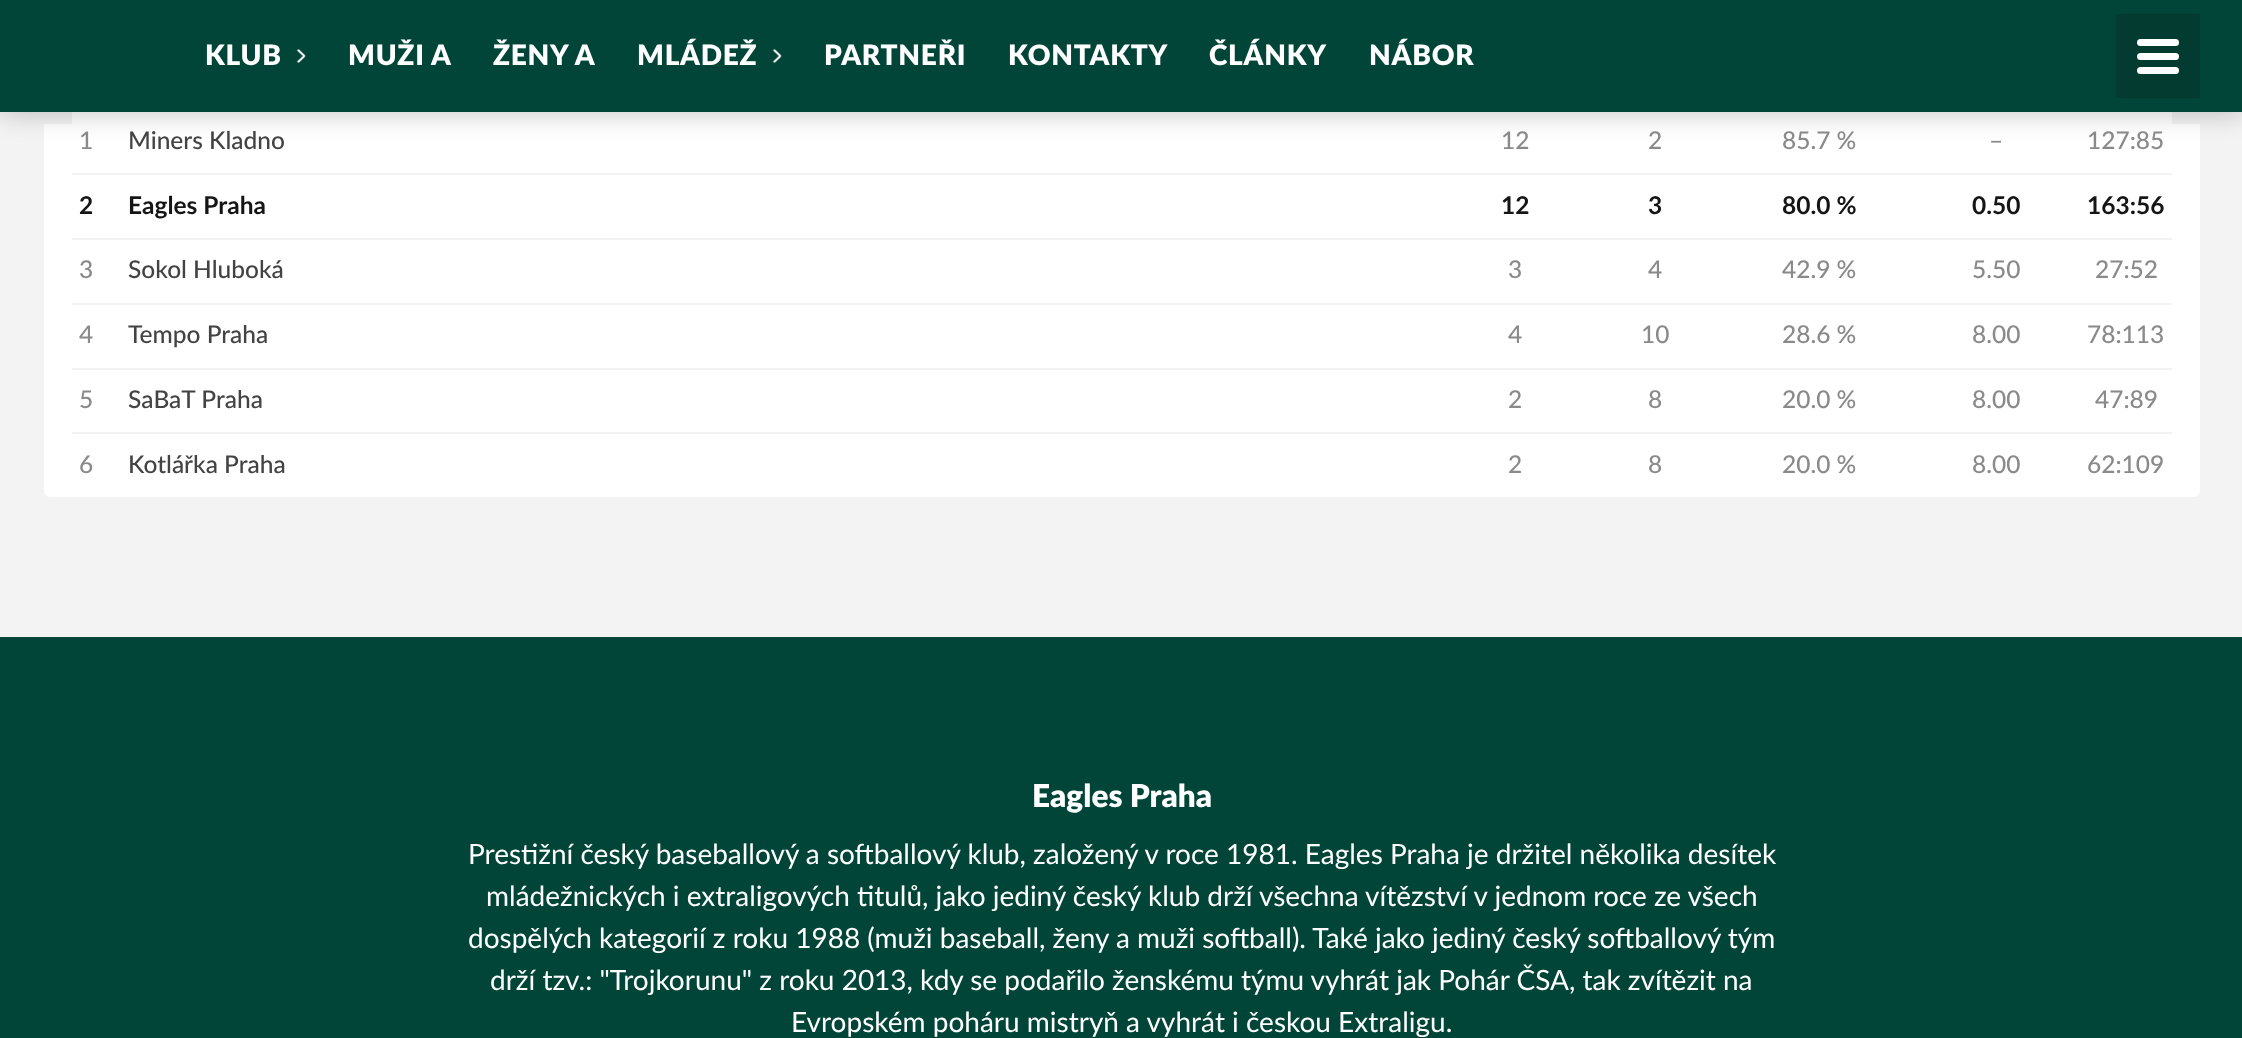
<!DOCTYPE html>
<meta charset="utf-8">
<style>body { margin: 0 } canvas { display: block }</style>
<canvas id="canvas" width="2242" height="1038"></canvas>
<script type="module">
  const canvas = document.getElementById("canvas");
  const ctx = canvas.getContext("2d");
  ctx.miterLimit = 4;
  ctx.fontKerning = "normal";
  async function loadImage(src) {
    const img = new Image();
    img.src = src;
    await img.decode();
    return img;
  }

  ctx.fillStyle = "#f3f3f3";
  ctx.fillRect(0, 0, 2242, 1038);
  ctx.fillStyle = "#ffffff";
  ctx.beginPath();
  ctx.roundRect(44, -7, 2156, 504, 7);
  ctx.fill();
  ctx.beginPath();
  ctx.roundRect(2172, 96, 28, 401, [0, 0, 7, 0]);
  ctx.fill();
  ctx.fillStyle = "#f3f3f3";
  ctx.fillRect(2172, 112, 28, 12);
  ctx.fillStyle = "#ffffff";
  ctx.beginPath();
  ctx.roundRect(44, 96, 28, 401, [0, 0, 0, 7]);
  ctx.fill();
  ctx.fillStyle = "#f3f3f3";
  ctx.fillRect(44, 112, 28, 12);
  ctx.fillStyle = "rgba(0, 0, 0, 0.25)";
  ctx.filter = "blur(14px)";
  ctx.beginPath();
  ctx.rect(0, 0, 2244, 112);
  ctx.fill();
  ctx.filter = "none";
  ctx.fillStyle = "#004538";
  ctx.fillRect(0, 0, 2242, 112);
  ctx.letterSpacing = "0.75px";
  ctx.font = "900 28px Lato";
  ctx.fillStyle = "#ffffff";
  ctx.fillText("KLUB", 205, 65);
  ctx.drawImage(await loadImage("img1.png"), 296, 49, 10, 14);
  ctx.fillText("MUŽI A", 348, 65);
  ctx.fillText("ŽENY A", 493, 65);
  ctx.fillText("MLÁDEŽ", 637, 65);
  ctx.drawImage(await loadImage("img1.png"), 772, 49, 10, 14);
  ctx.fillText("PARTNEŘI", 824, 65);
  ctx.fillText("KONTAKTY", 1008, 65);
  ctx.fillText("ČLÁNKY", 1209, 65);
  ctx.fillText("NÁBOR", 1369, 65);
  ctx.fillStyle = "#043b31";
  ctx.fillRect(2116, 14, 84, 84);
  ctx.fillStyle = "#ffffff";
  ctx.beginPath();
  ctx.roundRect(2137, 39, 42, 7, 3.5);
  ctx.fill();
  ctx.beginPath();
  ctx.roundRect(2137, 53, 42, 7, 3.5);
  ctx.fill();
  ctx.beginPath();
  ctx.roundRect(2137, 67, 42, 7, 3.5);
  ctx.fill();
  ctx.fillStyle = "#f3f3f3";
  ctx.fillRect(72, 173, 2100, 2);
  ctx.letterSpacing = "0px";
  ctx.font = "500 24.5px Lato";
  ctx.fillStyle = "#8a8a8a";
  ctx.fillText("1", 79, 149);
  ctx.fillStyle = "#434343";
  ctx.fillText("Miners Kladno", 128, 149);
  ctx.fillStyle = "#8a8a8a";
  ctx.fillText("12", 1501, 149);
  ctx.fillText("2", 1648, 149);
  ctx.fillText("85.7 %", 1782, 149);
  ctx.fillText("–", 1989, 149);
  ctx.fillText("127:85", 2087, 149);
  ctx.fillStyle = "#f3f3f3";
  ctx.fillRect(72, 238, 2100, 2);
  ctx.font = "bold 24.5px Lato";
  ctx.fillStyle = "#151515";
  ctx.fillText("2", 79, 214);
  ctx.fillText("Eagles Praha", 128, 214);
  ctx.fillText("12", 1501, 214);
  ctx.fillText("3", 1648, 214);
  ctx.fillText("80.0 %", 1782, 214);
  ctx.fillText("0.50", 1972, 214);
  ctx.fillText("163:56", 2087, 214);
  ctx.fillStyle = "#f3f3f3";
  ctx.fillRect(72, 303, 2100, 2);
  ctx.font = "500 24.5px Lato";
  ctx.fillStyle = "#8a8a8a";
  ctx.fillText("3", 79, 278);
  ctx.fillStyle = "#434343";
  ctx.fillText("Sokol Hluboká", 128, 278);
  ctx.fillStyle = "#8a8a8a";
  ctx.fillText("3", 1508, 278);
  ctx.fillText("4", 1648, 278);
  ctx.fillText("42.9 %", 1782, 278);
  ctx.fillText("5.50", 1972, 278);
  ctx.fillText("27:52", 2095, 278);
  ctx.fillStyle = "#f3f3f3";
  ctx.fillRect(72, 368, 2100, 2);
  ctx.fillStyle = "#8a8a8a";
  ctx.fillText("4", 79, 343);
  ctx.fillStyle = "#434343";
  ctx.fillText("Tempo Praha", 128, 343);
  ctx.fillStyle = "#8a8a8a";
  ctx.fillText("4", 1508, 343);
  ctx.fillText("10", 1641, 343);
  ctx.fillText("28.6 %", 1782, 343);
  ctx.fillText("8.00", 1972, 343);
  ctx.fillText("78:113", 2087, 343);
  ctx.fillStyle = "#f3f3f3";
  ctx.fillRect(72, 432, 2100, 2);
  ctx.fillStyle = "#8a8a8a";
  ctx.fillText("5", 79, 408);
  ctx.fillStyle = "#434343";
  ctx.fillText("SaBaT Praha", 128, 408);
  ctx.fillStyle = "#8a8a8a";
  ctx.fillText("2", 1508, 408);
  ctx.fillText("8", 1648, 408);
  ctx.fillText("20.0 %", 1782, 408);
  ctx.fillText("8.00", 1972, 408);
  ctx.fillText("47:89", 2095, 408);
  ctx.fillText("6", 79, 473);
  ctx.fillStyle = "#434343";
  ctx.fillText("Kotlářka Praha", 128, 473);
  ctx.fillStyle = "#8a8a8a";
  ctx.fillText("2", 1508, 473);
  ctx.fillText("8", 1648, 473);
  ctx.fillText("20.0 %", 1782, 473);
  ctx.fillText("8.00", 1972, 473);
  ctx.fillText("62:109", 2087, 473);
  ctx.fillStyle = "#004538";
  ctx.fillRect(0, 637, 2242, 401);
  ctx.font = "900 31.5px Lato";
  ctx.fillStyle = "#ffffff";
  ctx.fillText("Eagles Praha", 1032, 807);
  ctx.font = "28px Lato";
  ctx.fillText("Prestižní český baseballový a softballový klub, založený v roce 1981. Eagles Praha je držitel několika desítek", 468, 864);
  ctx.fillText("mládežnických i extraligových titulů, jako jediný český klub drží všechna vítězství v jednom roce ze všech", 486, 906);
  ctx.fillText("dospělých kategorií z roku 1988 (muži baseball, ženy a muži softball). Také jako jediný český softballový tým", 468, 948);
  ctx.fillText("drží tzv.: \"Trojkorunu\" z roku 2013, kdy se podařilo ženskému týmu vyhrát jak Pohár ČSA, tak zvítězit na", 490, 990);
  ctx.fillText("Evropském poháru mistryň a vyhrát i českou Extraligu.", 791, 1032);
</script>
